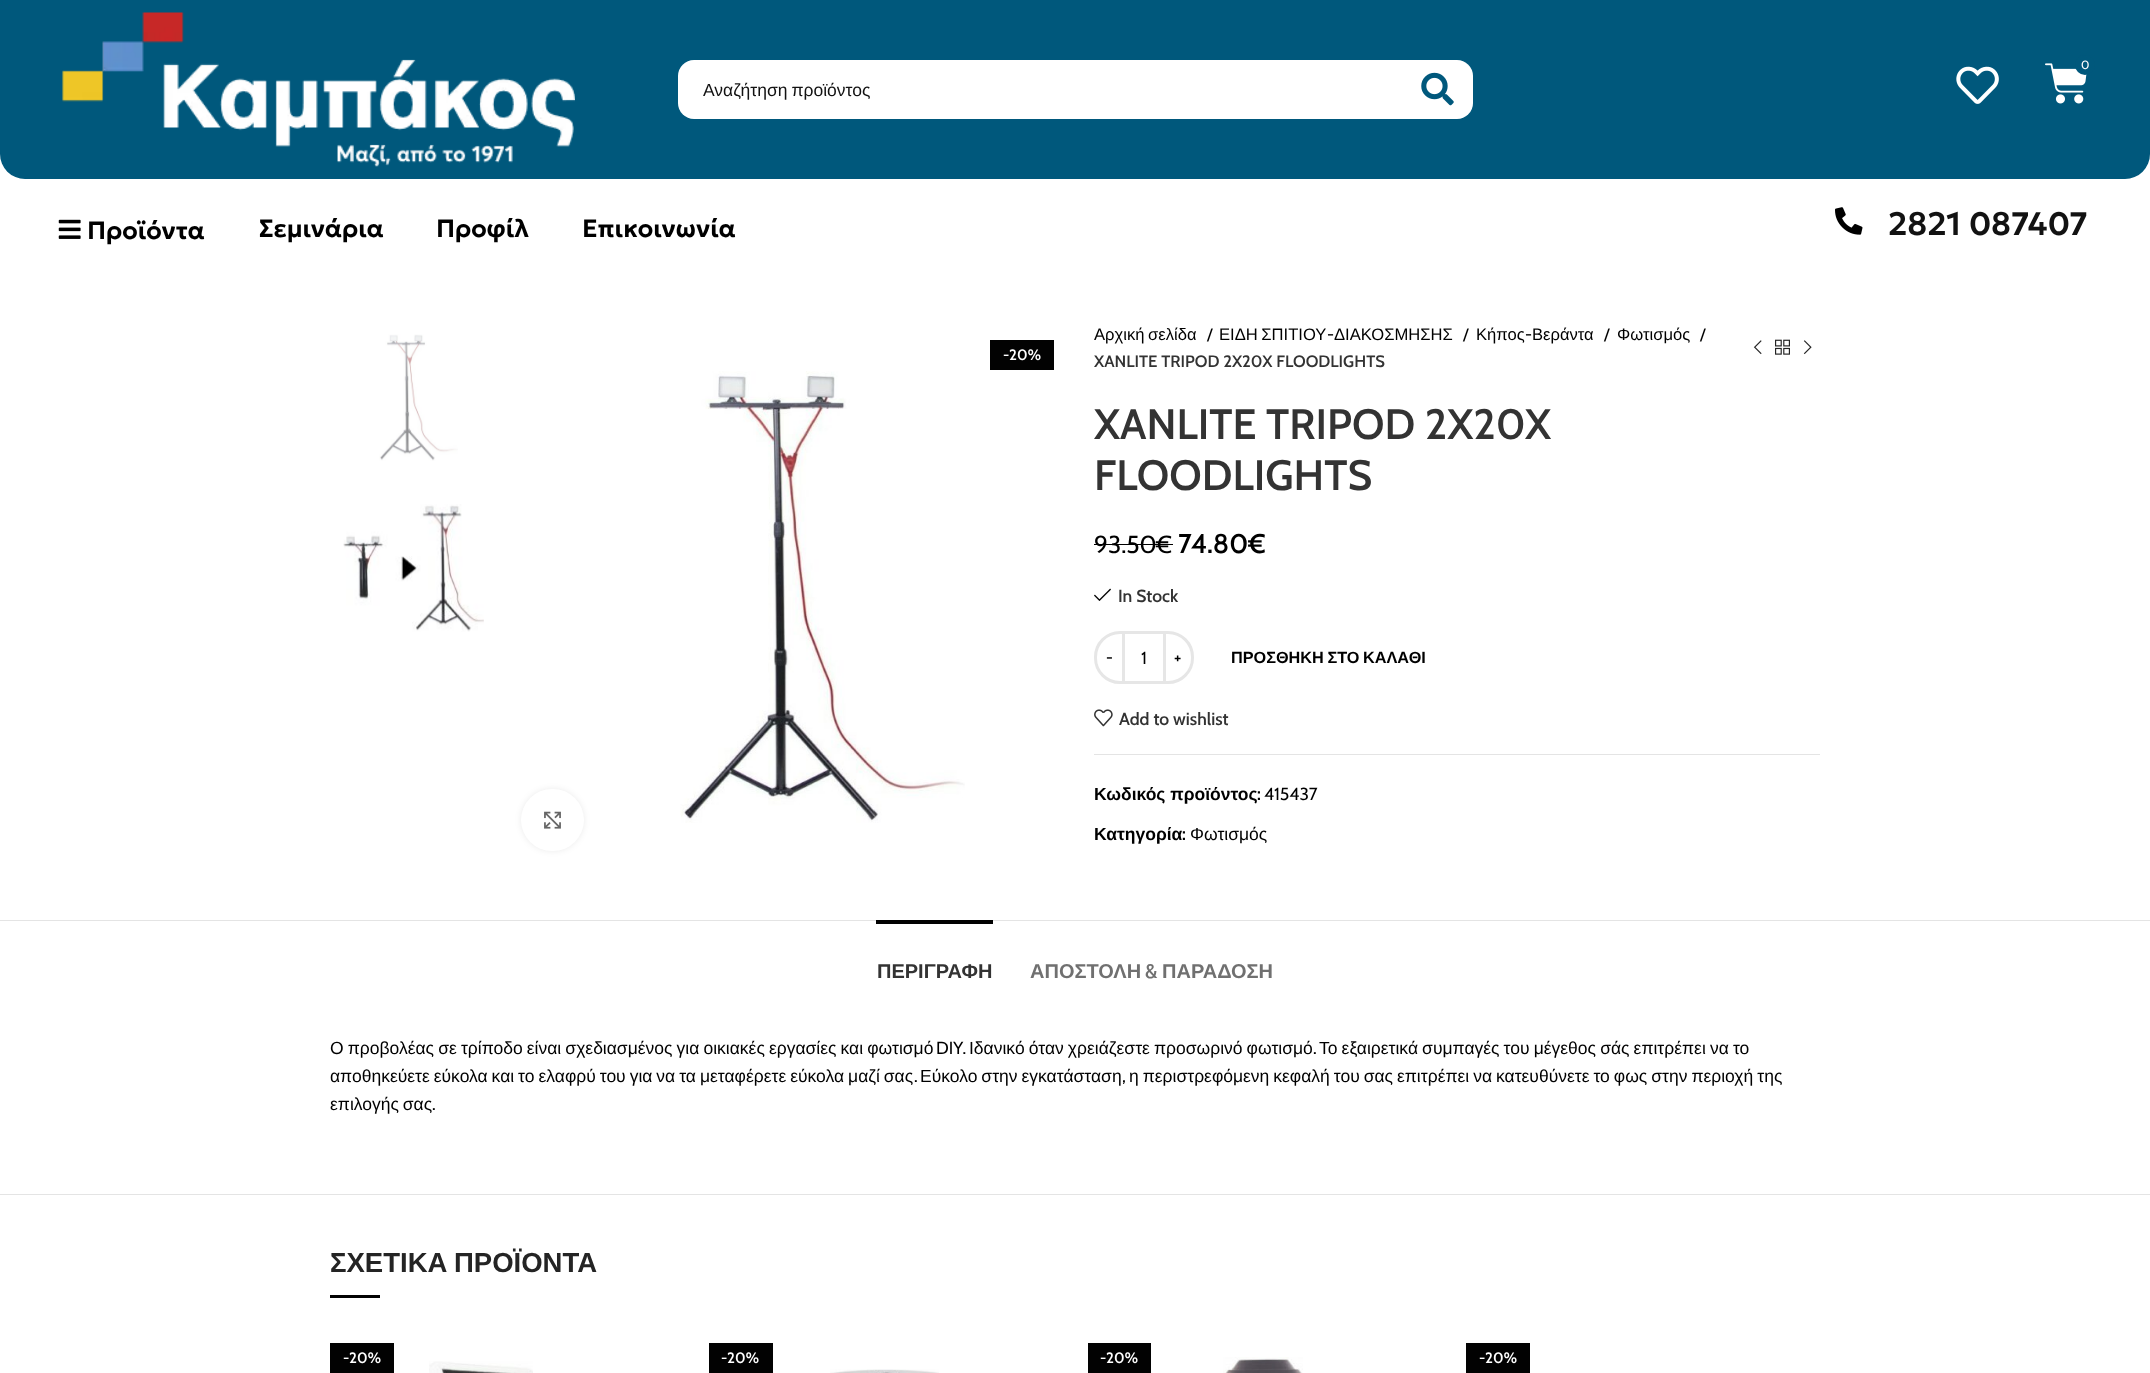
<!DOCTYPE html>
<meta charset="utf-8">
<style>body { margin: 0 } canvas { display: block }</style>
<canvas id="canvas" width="2150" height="1373"></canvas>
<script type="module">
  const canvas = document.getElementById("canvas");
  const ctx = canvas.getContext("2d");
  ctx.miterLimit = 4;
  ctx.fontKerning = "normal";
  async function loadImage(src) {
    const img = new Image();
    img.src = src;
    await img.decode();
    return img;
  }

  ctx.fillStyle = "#ffffff";
  ctx.fillRect(0, 0, 2150, 1373);
  ctx.fillStyle = "#00587c";
  ctx.beginPath();
  ctx.roundRect(0, 0, 2150, 179, [0, 0, 25, 25]);
  ctx.fill();
  ctx.drawImage(await loadImage("img1.png"), 62, 12, 513, 155);
  ctx.drawImage(await loadImage("img2.png"), 2045, 63, 42, 41);
  ctx.beginPath();
  ctx.arc(2085, 65, 10, 0, Math.PI * 2);
  ctx.fill();
  ctx.font = "12px Cabin";
  ctx.fillStyle = "#ffffff";
  ctx.fillText("0", 2081, 69);
  ctx.drawImage(await loadImage("img3.png"), 1956, 66, 43, 38);
  ctx.beginPath();
  ctx.roundRect(678, 60, 795, 59, 16);
  ctx.fill();
  ctx.wordSpacing = "-1px";
  ctx.font = "17.5px Liberation Sans";
  ctx.fillStyle = "#121212";
  ctx.fillText("Αναζήτηση προϊόντος", 703, 96);
  ctx.drawImage(await loadImage("img4.png"), 1421, 72, 33, 34);
  ctx.drawImage(await loadImage("img5.png"), 58, 219, 23, 20);
  ctx.wordSpacing = "0px";
  ctx.font = "600 25px Geologica";
  ctx.fillStyle = "#000000";
  ctx.fillText("Προϊόντα", 87, 239);
  ctx.fillText("Σεμινάρια", 259, 237);
  ctx.fillText("Προφίλ", 436, 237);
  ctx.fillText("Επικοινωνία", 582, 237);
  ctx.drawImage(await loadImage("img6.png"), 1835, 207, 28, 28);
  ctx.font = "600 32.5px Geologica";
  ctx.fillStyle = "#121212";
  ctx.fillText("2821 087407", 1888, 235);
  ctx.drawImage(await loadImage("img7.png"), 379, 334, 79, 127);
  ctx.drawImage(await loadImage("img8.png"), 343, 504, 141, 128);
  ctx.fillStyle = "#020202";
  ctx.fillRect(990, 340, 64, 30);
  ctx.font = "600 15px Cabin";
  ctx.fillStyle = "#ffffff";
  ctx.fillText("-20%", 1003, 360);
  ctx.fillStyle = "rgba(0, 0, 0, 0.08)";
  ctx.filter = "blur(3px)";
  ctx.beginPath();
  ctx.roundRect(521, 789, 63, 62, 31);
  ctx.fill();
  ctx.filter = "none";
  ctx.fillStyle = "#ffffff";
  ctx.beginPath();
  ctx.roundRect(521, 789, 63, 62, 31);
  ctx.fill();
  ctx.drawImage(await loadImage("img9.png"), 544, 811, 17, 18);
  ctx.drawImage(await loadImage("img10.png"), 680, 371, 285, 452);
  ctx.wordSpacing = "-1px";
  ctx.font = "16.6px Liberation Sans";
  ctx.fillStyle = "#000000";
  ctx.fillText("Αρχική σελίδα", 1094, 340);
  ctx.wordSpacing = "0px";
  ctx.font = "16.6px Cabin";
  ctx.fillText("/", 1207, 340);
  ctx.wordSpacing = "-1px";
  ctx.font = "16.6px Liberation Sans";
  ctx.fillText("ΕΙΔΗ ΣΠΙΤΙΟΥ", 1219, 340);
  ctx.wordSpacing = "0px";
  ctx.font = "16.6px Cabin";
  ctx.fillText("-", 1327, 340);
  ctx.font = "16.6px Liberation Sans";
  ctx.fillText("ΔΙΑΚΟΣΜΗΣΗΣ", 1334, 340);
  ctx.font = "16.6px Cabin";
  ctx.fillText("/", 1463, 340);
  ctx.font = "16.6px Liberation Sans";
  ctx.fillText("Κήπος", 1476, 340);
  ctx.font = "16.6px Cabin";
  ctx.fillText("-", 1525, 340);
  ctx.font = "16.6px Liberation Sans";
  ctx.fillText("Βεράντα", 1532, 340);
  ctx.font = "16.6px Cabin";
  ctx.fillText("/", 1604, 340);
  ctx.font = "16.6px Liberation Sans";
  ctx.fillText("Φωτισμός", 1617, 340);
  ctx.font = "16.6px Cabin";
  ctx.fillText("/", 1700, 340);
  ctx.font = "600 16.6px Cabin";
  ctx.fillStyle = "#333333";
  ctx.fillText("XANLITE TRIPOD 2X20X FLOODLIGHTS", 1094, 367);
  ctx.drawImage(await loadImage("img11.png"), 1753, 340, 9, 15);
  ctx.drawImage(await loadImage("img12.png"), 1775, 339, 15, 16);
  ctx.drawImage(await loadImage("img13.png"), 1803, 340, 9, 15);
  ctx.font = "600 42.5px Cabin";
  ctx.fillText("XANLITE TRIPOD 2X20X", 1094, 439);
  ctx.fillText("FLOODLIGHTS", 1094, 490);
  ctx.font = "24.5px Cabin";
  ctx.fillStyle = "#000000";
  ctx.fillText("93.50", 1094, 553);
  ctx.fillRect(1094, 544, 62, 1);
  ctx.fillText("€", 1156, 553);
  ctx.fillRect(1156, 544, 17, 1);
  ctx.font = "600 27px Cabin";
  ctx.fillText("74.80€", 1178, 553);
  ctx.drawImage(await loadImage("img14.png"), 1094, 588, 17, 13);
  ctx.font = "600 17.5px Cabin";
  ctx.fillStyle = "#333333";
  ctx.fillText("In Stock", 1118, 602);
  ctx.beginPath();
  ctx.roundRect(1095.5, 632.5, 28, 50, [24.5, 0, 0, 24.5]);
  ctx.strokeStyle = "#e6e6e6";
  ctx.lineWidth = 3;
  ctx.stroke();
  ctx.font = "600 16.25px Cabin";
  ctx.fillStyle = "#000000";
  ctx.fillText("-", 1106, 663);
  ctx.fillStyle = "#e6e6e6";
  ctx.fillRect(1125, 631, 38, 3);
  ctx.fillRect(1125, 681, 38, 3);
  ctx.font = "17.5px Cabin";
  ctx.fillStyle = "#000000";
  ctx.fillText("1", 1141, 664);
  ctx.beginPath();
  ctx.roundRect(1164.5, 632.5, 28, 50, [0, 24.5, 24.5, 0]);
  ctx.stroke();
  ctx.font = "600 16.25px Cabin";
  ctx.fillText("+", 1174, 663);
  ctx.wordSpacing = "-0.9px";
  ctx.font = "bold 16.25px Liberation Sans";
  ctx.fillText("ΠΡΟΣΘΗΚΗ ΣΤΟ ΚΑΛΑΘΙ", 1231, 663);
  ctx.drawImage(await loadImage("img15.png"), 1094, 709, 19, 18);
  ctx.wordSpacing = "0px";
  ctx.font = "600 17.5px Cabin";
  ctx.fillStyle = "#333333";
  ctx.fillText("Add to wishlist", 1119, 725);
  ctx.fillStyle = "#e4e4e4";
  ctx.fillRect(1094, 754, 726, 1);
  ctx.font = "bold 17.5px Liberation Sans";
  ctx.fillStyle = "#000000";
  ctx.fillText("Κωδικός προϊόντος", 1094, 800);
  ctx.font = "600 17.5px Cabin";
  ctx.fillText(":", 1257, 800);
  ctx.font = "17.5px Cabin";
  ctx.fillText("415437", 1264, 800);
  ctx.font = "bold 17.5px Liberation Sans";
  ctx.fillText("Κατηγορία", 1094, 840);
  ctx.font = "600 17.5px Cabin";
  ctx.fillText(":", 1182, 840);
  ctx.font = "17.5px Liberation Sans";
  ctx.fillText("Φωτισμός", 1190, 840);
  ctx.fillStyle = "#e4e4e4";
  ctx.fillRect(0, 920, 2150, 1);
  ctx.fillRect(0, 1194, 2150, 1);
  ctx.fillStyle = "#020202";
  ctx.fillRect(876, 920, 117, 4);
  ctx.font = "bold 20px Liberation Sans";
  ctx.fillStyle = "#333333";
  ctx.fillText("ΠΕΡΙΓΡΑΦΗ", 877, 978);
  ctx.fillStyle = "#707070";
  ctx.fillText("ΑΠΟΣΤΟΛΗ", 1030, 978);
  ctx.font = "600 20px Cabin";
  ctx.fillText("&", 1145, 978);
  ctx.font = "bold 20px Liberation Sans";
  ctx.fillText("ΠΑΡΑΔΟΣΗ", 1162, 978);
  ctx.wordSpacing = "-0.75px";
  ctx.font = "17.5px Liberation Sans";
  ctx.fillStyle = "#000000";
  ctx.fillText("Ο προβολέας σε τρίποδο είναι σχεδιασμένος για οικιακές εργασίες και φωτισμό", 330, 1054);
  ctx.wordSpacing = "0px";
  ctx.font = "17.5px Cabin";
  ctx.fillText("DIY.", 936, 1054);
  ctx.wordSpacing = "-0.75px";
  ctx.font = "17.5px Liberation Sans";
  ctx.fillText("Ιδανικό όταν χρειάζεστε προσωρινό φωτισμό", 969, 1054);
  ctx.wordSpacing = "0px";
  ctx.font = "17.5px Cabin";
  ctx.fillText(".", 1313, 1054);
  ctx.wordSpacing = "-0.75px";
  ctx.font = "17.5px Liberation Sans";
  ctx.fillText("Το εξαιρετικά συμπαγές του μέγεθος σάς επιτρέπει να το", 1319, 1054);
  ctx.wordSpacing = "-0.9px";
  ctx.fillText("αποθηκεύετε εύκολα και το ελαφρύ του για να τα μεταφέρετε εύκολα μαζί σας", 330, 1082);
  ctx.wordSpacing = "0px";
  ctx.font = "17.5px Cabin";
  ctx.fillText(".", 914, 1082);
  ctx.wordSpacing = "-0.9px";
  ctx.font = "17.5px Liberation Sans";
  ctx.fillText("Εύκολο στην εγκατάσταση", 920, 1082);
  ctx.wordSpacing = "0px";
  ctx.font = "17.5px Cabin";
  ctx.fillText(",", 1122, 1082);
  ctx.wordSpacing = "-0.9px";
  ctx.font = "17.5px Liberation Sans";
  ctx.fillText("η περιστρεφόμενη κεφαλή του σας επιτρέπει να κατευθύνετε το φως στην περιοχή της", 1129, 1082);
  ctx.wordSpacing = "-1px";
  ctx.fillText("επιλογής σας", 330, 1110);
  ctx.wordSpacing = "0px";
  ctx.font = "17.5px Cabin";
  ctx.fillText(".", 432, 1110);
  ctx.wordSpacing = "-1px";
  ctx.font = "bold 27.5px Liberation Sans";
  ctx.fillStyle = "#242424";
  ctx.fillText("ΣΧΕΤΙΚΑ ΠΡΟΪΟΝΤΑ", 330, 1272);
  ctx.fillStyle = "#020202";
  ctx.fillRect(330, 1295, 50, 3);
  ctx.fillRect(330, 1343, 64, 30);
  ctx.wordSpacing = "0px";
  ctx.font = "600 15px Cabin";
  ctx.fillStyle = "#ffffff";
  ctx.fillText("-20%", 343, 1363);
  ctx.drawImage(await loadImage("img16.png"), 429, 1361, 104, 12);
  ctx.fillStyle = "#020202";
  ctx.fillRect(709, 1343, 64, 30);
  ctx.fillStyle = "#ffffff";
  ctx.fillText("-20%", 721, 1363);
  ctx.drawImage(await loadImage("img17.png"), 830, 1369, 109, 4);
  ctx.fillStyle = "#020202";
  ctx.fillRect(1088, 1343, 63, 30);
  ctx.fillStyle = "#ffffff";
  ctx.fillText("-20%", 1100, 1363);
  ctx.drawImage(await loadImage("img18.png"), 1223, 1357, 80, 16);
  ctx.fillStyle = "#020202";
  ctx.fillRect(1466, 1343, 64, 30);
  ctx.fillStyle = "#ffffff";
  ctx.fillText("-20%", 1479, 1363);
</script>
